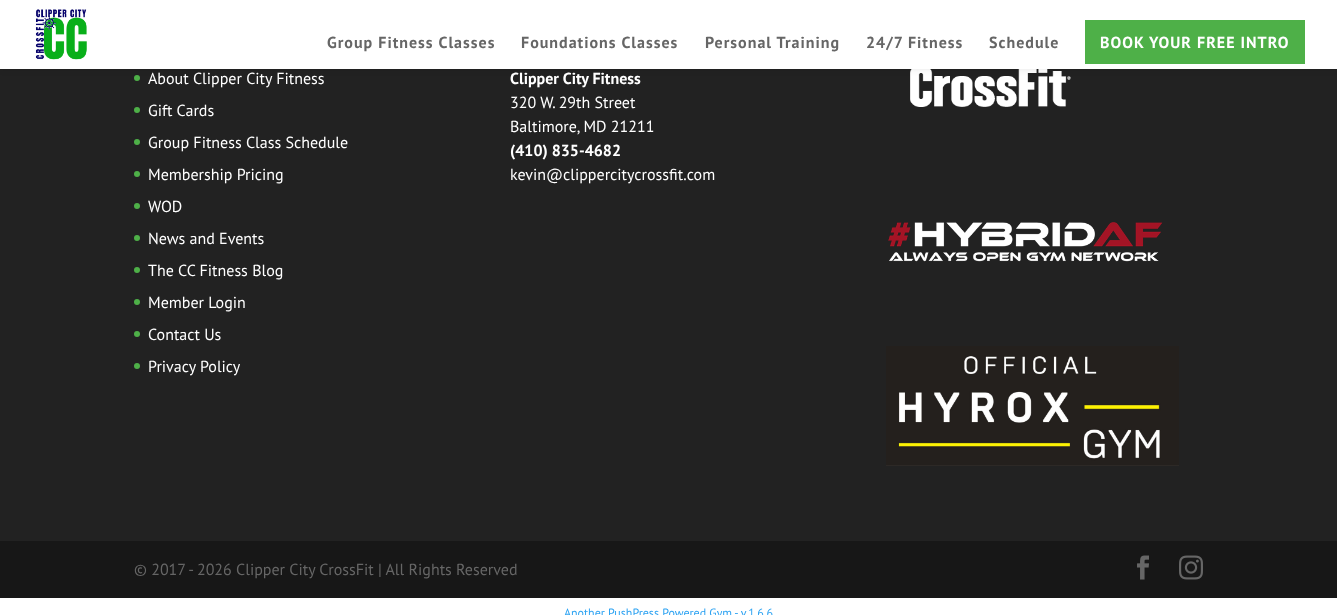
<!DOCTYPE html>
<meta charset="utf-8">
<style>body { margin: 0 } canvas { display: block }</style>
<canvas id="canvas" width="1337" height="615"></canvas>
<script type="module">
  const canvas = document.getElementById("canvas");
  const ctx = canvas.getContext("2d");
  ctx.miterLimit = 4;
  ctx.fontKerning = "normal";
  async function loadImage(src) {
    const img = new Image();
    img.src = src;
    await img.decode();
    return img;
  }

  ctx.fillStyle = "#ffffff";
  ctx.fillRect(0, 0, 1337, 615);
  ctx.fillStyle = "#222222";
  ctx.fillRect(0, 69, 1337, 472);
  ctx.fillStyle = "#4eb048";
  ctx.beginPath();
  ctx.arc(137, 78, 3, 0, Math.PI * 2);
  ctx.fill();
  ctx.drawImage(await loadImage("img2.png"), 910, 69, 161, 38);
  ctx.fillStyle = "rgba(0, 0, 0, 0.1)";
  ctx.filter = "blur(3.5px)";
  ctx.beginPath();
  ctx.rect(0, 0, 1337, 69);
  ctx.fill();
  ctx.filter = "none";
  ctx.fillStyle = "#ffffff";
  ctx.fillRect(0, 0, 1337, 69);
  ctx.drawImage(await loadImage("img1.png"), 35, 9, 52, 51);
  ctx.letterSpacing = "1px";
  ctx.font = "bold 16px PT Sans";
  ctx.fillStyle = "#666666";
  ctx.fillText("Group Fitness Classes", 327, 48);
  ctx.fillText("Foundations Classes", 521, 48);
  ctx.fillText("Personal Training", 705, 48);
  ctx.fillText("24/7 Fitness", 866, 48);
  ctx.fillText("Schedule", 989, 48);
  ctx.fillStyle = "#4eb048";
  ctx.fillRect(1085, 20, 220, 44);
  ctx.fillStyle = "#ffffff";
  ctx.fillText("BOOK YOUR FREE INTRO", 1100, 48);
  ctx.letterSpacing = "0px";
  ctx.font = "16px PT Sans";
  ctx.fillText("About Clipper City Fitness", 148, 84);
  ctx.fillStyle = "#4eb048";
  ctx.beginPath();
  ctx.arc(137, 110, 3, 0, Math.PI * 2);
  ctx.fill();
  ctx.fillStyle = "#ffffff";
  ctx.fillText("Gift Cards", 148, 116);
  ctx.fillStyle = "#4eb048";
  ctx.beginPath();
  ctx.arc(137, 142, 3, 0, Math.PI * 2);
  ctx.fill();
  ctx.fillStyle = "#ffffff";
  ctx.fillText("Group Fitness Class Schedule", 148, 148);
  ctx.fillStyle = "#4eb048";
  ctx.beginPath();
  ctx.arc(137, 174, 3, 0, Math.PI * 2);
  ctx.fill();
  ctx.fillStyle = "#ffffff";
  ctx.fillText("Membership Pricing", 148, 180);
  ctx.fillStyle = "#4eb048";
  ctx.beginPath();
  ctx.arc(137, 206, 3, 0, Math.PI * 2);
  ctx.fill();
  ctx.fillStyle = "#ffffff";
  ctx.fillText("WOD", 148, 212);
  ctx.fillStyle = "#4eb048";
  ctx.beginPath();
  ctx.arc(137, 238, 3, 0, Math.PI * 2);
  ctx.fill();
  ctx.fillStyle = "#ffffff";
  ctx.fillText("News and Events", 148, 244);
  ctx.fillStyle = "#4eb048";
  ctx.beginPath();
  ctx.arc(137, 270, 3, 0, Math.PI * 2);
  ctx.fill();
  ctx.fillStyle = "#ffffff";
  ctx.fillText("The CC Fitness Blog", 148, 276);
  ctx.fillStyle = "#4eb048";
  ctx.beginPath();
  ctx.arc(137, 302, 3, 0, Math.PI * 2);
  ctx.fill();
  ctx.fillStyle = "#ffffff";
  ctx.fillText("Member Login", 148, 308);
  ctx.fillStyle = "#4eb048";
  ctx.beginPath();
  ctx.arc(137, 334, 3, 0, Math.PI * 2);
  ctx.fill();
  ctx.fillStyle = "#ffffff";
  ctx.fillText("Contact Us", 148, 340);
  ctx.fillStyle = "#4eb048";
  ctx.beginPath();
  ctx.arc(137, 366, 3, 0, Math.PI * 2);
  ctx.fill();
  ctx.fillStyle = "#ffffff";
  ctx.fillText("Privacy Policy", 148, 372);
  ctx.font = "bold 16px PT Sans";
  ctx.fillText("Clipper City Fitness", 510, 84);
  ctx.font = "16px PT Sans";
  ctx.fillText("320 W. 29th Street", 510, 108);
  ctx.fillText("Baltimore, MD 21211", 510, 132);
  ctx.font = "bold 16px PT Sans";
  ctx.fillText("(410) 835-4682", 510, 156);
  ctx.font = "16px PT Sans";
  ctx.fillText("kevin@clippercitycrossfit.com", 510, 180);
  ctx.drawImage(await loadImage("img3.png"), 888, 222, 275, 40);
  ctx.drawImage(await loadImage("img4.png"), 886, 346, 293, 120);
  ctx.fillStyle = "#171717";
  ctx.fillRect(0, 541, 1337, 57);
  ctx.fillStyle = "#666666";
  ctx.fillText("© 2017 - 2026 Clipper City CrossFit | All Rights Reserved", 134, 575);
  ctx.drawImage(await loadImage("img5.png"), 1137, 555, 12, 25);
  ctx.drawImage(await loadImage("img6.png"), 1179, 555, 24, 25);
  ctx.font = "12px PT Sans";
  ctx.fillStyle = "#2ea3f2";
  ctx.fillText("Another PushPress Powered Gym - v.1.6.6", 564, 617);
</script>
